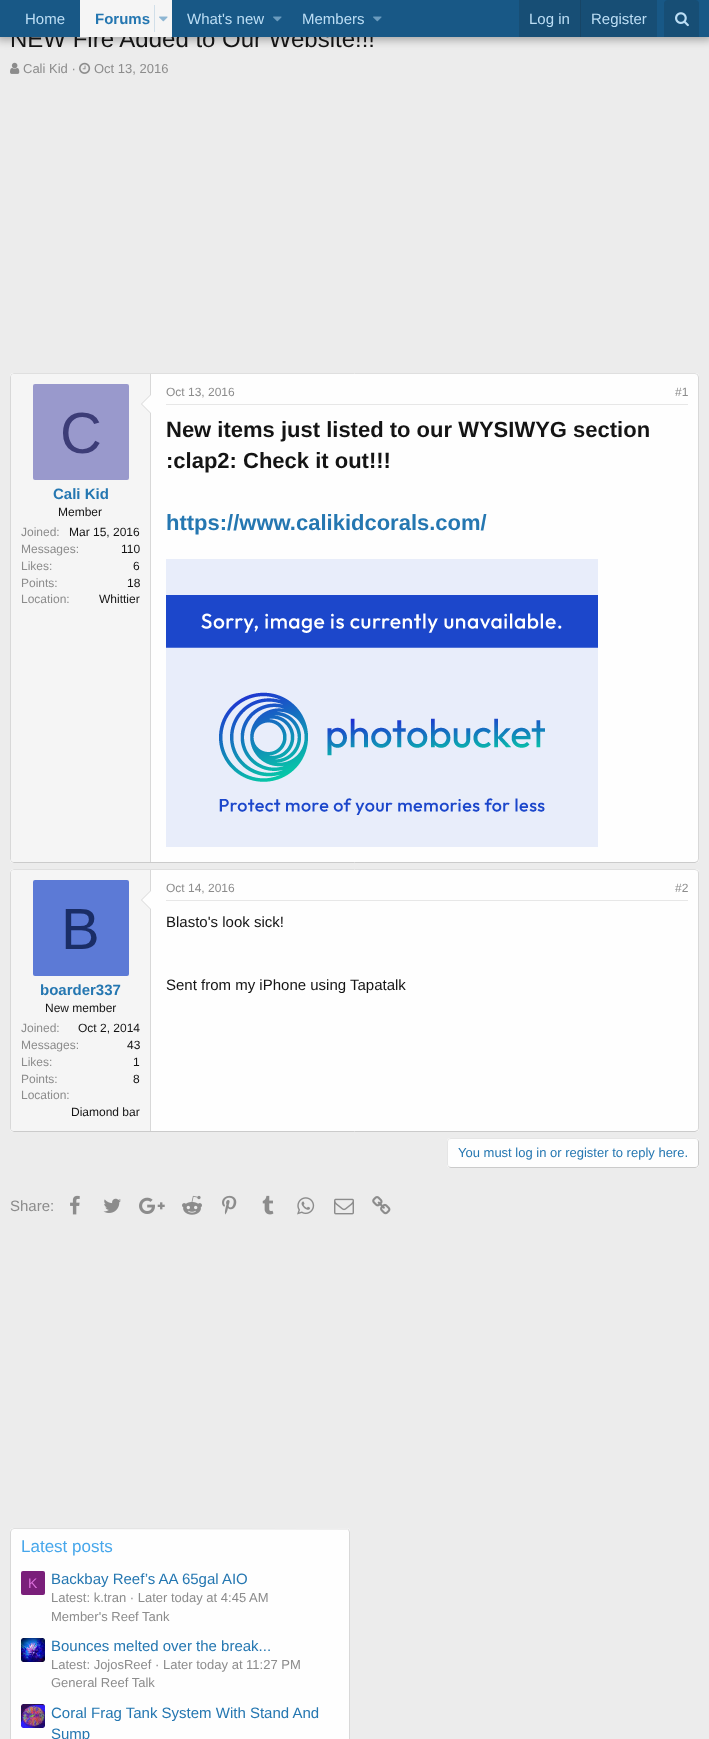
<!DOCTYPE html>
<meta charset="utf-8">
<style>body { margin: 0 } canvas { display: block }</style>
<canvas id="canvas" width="709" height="1739"></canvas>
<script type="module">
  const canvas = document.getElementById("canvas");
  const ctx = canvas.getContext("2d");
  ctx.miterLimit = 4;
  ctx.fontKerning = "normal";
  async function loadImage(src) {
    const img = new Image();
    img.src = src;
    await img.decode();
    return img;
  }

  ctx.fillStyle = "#ececec";
  ctx.fillRect(0, 0, 709, 1739);
  ctx.fillStyle = "rgba(0, 0, 0, 0.3)";
  ctx.filter = "blur(4px)";
  ctx.beginPath();
  ctx.rect(-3, -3, 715, 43);
  ctx.fill();
  ctx.filter = "none";
  ctx.font = "24px Liberation Sans";
  ctx.fillStyle = "#141414";
  ctx.fillText("NEW Fire Added to Our Website!!!", 10, 47);
  ctx.fillStyle = "#185886";
  ctx.fillRect(0, 0, 709, 37);
  ctx.font = "15px Liberation Sans";
  ctx.fillStyle = "#bcdef5";
  ctx.fillText("Home", 25, 24);
  ctx.fillStyle = "#f5f5f5";
  ctx.fillRect(80, 0, 92, 37);
  ctx.font = "bold 15px Liberation Sans";
  ctx.fillStyle = "#2577b1";
  ctx.fillText("Forums", 95, 24);
  ctx.fillStyle = "#d1dfe9";
  ctx.fillRect(154, 5, 1, 27);
  ctx.drawImage(await loadImage("img1.png"), 159, 16, 9, 6);
  ctx.font = "15px Liberation Sans";
  ctx.fillStyle = "#bcdef5";
  ctx.fillText("What's new", 187, 24);
  ctx.drawImage(await loadImage("img2.png"), 273, 16, 9, 6);
  ctx.fillText("Members", 302, 24);
  ctx.drawImage(await loadImage("img2.png"), 373, 16, 9, 6);
  ctx.fillStyle = "#174e75";
  ctx.fillRect(519, 0, 138, 37);
  ctx.fillStyle = "#bcdef5";
  ctx.fillText("Log in", 529, 24);
  ctx.fillStyle = "#174566";
  ctx.fillRect(580, 0, 1, 37);
  ctx.fillStyle = "#bcdef5";
  ctx.fillText("Register", 591, 24);
  ctx.fillStyle = "#174e75";
  ctx.beginPath();
  ctx.roundRect(664, 0, 35, 37, [4, 4, 0, 0]);
  ctx.fill();
  ctx.drawImage(await loadImage("img3.png"), 675, 12, 14, 15);
  ctx.drawImage(await loadImage("img4.png"), 10, 62, 10, 12);
  ctx.font = "13px Liberation Sans";
  ctx.fillStyle = "#8c8c8c";
  ctx.fillText("Cali Kid ·", 23, 73);
  ctx.drawImage(await loadImage("img5.png"), 79, 62, 12, 12);
  ctx.fillText("Oct 13, 2016", 94, 73);
  ctx.fillStyle = "#fefefe";
  ctx.beginPath();
  ctx.roundRect(10, 373, 689, 490, 4);
  ctx.fill();
  ctx.beginPath();
  ctx.moveTo(11.5, 374.5);
  ctx.lineTo(14, 373.5);
  ctx.lineTo(695, 373.5);
  ctx.lineTo(697.5, 374.5);
  ctx.strokeStyle = "#dfdfdf";
  ctx.stroke();
  ctx.beginPath();
  ctx.moveTo(697.5, 374.5);
  ctx.lineTo(698.5, 377);
  ctx.lineTo(698.5, 859);
  ctx.lineTo(697.5, 861.5);
  ctx.strokeStyle = "#d8d8d8";
  ctx.stroke();
  ctx.beginPath();
  ctx.moveTo(697.5, 861.5);
  ctx.lineTo(695, 862.5);
  ctx.lineTo(14, 862.5);
  ctx.lineTo(11.5, 861.5);
  ctx.strokeStyle = "#cbcbcb";
  ctx.stroke();
  ctx.beginPath();
  ctx.moveTo(11.5, 861.5);
  ctx.lineTo(10.5, 859);
  ctx.lineTo(10.5, 377);
  ctx.lineTo(11.5, 374.5);
  ctx.strokeStyle = "#d8d8d8";
  ctx.stroke();
  ctx.fillStyle = "#f5f5f5";
  ctx.beginPath();
  ctx.roundRect(11, 374, 140, 488, [3, 0, 0, 3]);
  ctx.fill();
  ctx.fillStyle = "#d8d8d8";
  ctx.fillRect(150, 374, 1, 488);
  ctx.beginPath();
  ctx.moveTo(151, 394);
  ctx.lineTo(151, 414);
  ctx.lineTo(141, 404);
  ctx.closePath();
  ctx.fill();
  ctx.fillStyle = "#fefefe";
  ctx.beginPath();
  ctx.moveTo(151, 395);
  ctx.lineTo(151, 413);
  ctx.lineTo(142, 404);
  ctx.closePath();
  ctx.fill();
  ctx.fillStyle = "#9999cc";
  ctx.beginPath();
  ctx.roundRect(33, 384, 96, 96, 2);
  ctx.fill();
  ctx.font = "58px Liberation Sans";
  ctx.fillStyle = "#3c3c77";
  ctx.fillText("C", 60, 453);
  ctx.font = "bold 15px Liberation Sans";
  ctx.fillStyle = "#2577b1";
  ctx.fillText("Cali Kid", 53, 499);
  ctx.font = "12px Liberation Sans";
  ctx.fillStyle = "#141414";
  ctx.fillText("Member", 58, 516);
  ctx.fillStyle = "#8c8c8c";
  ctx.fillText("Joined:", 21, 536);
  ctx.fillStyle = "#141414";
  ctx.fillText("Mar 15, 2016", 69, 536);
  ctx.fillStyle = "#8c8c8c";
  ctx.fillText("Messages:", 21, 553);
  ctx.fillStyle = "#141414";
  ctx.fillText("110", 121, 553);
  ctx.fillStyle = "#8c8c8c";
  ctx.fillText("Likes:", 21, 570);
  ctx.fillStyle = "#141414";
  ctx.fillText("6", 133, 570);
  ctx.fillStyle = "#8c8c8c";
  ctx.fillText("Points:", 21, 587);
  ctx.fillStyle = "#141414";
  ctx.fillText("18", 127, 587);
  ctx.fillStyle = "#8c8c8c";
  ctx.fillText("Location:", 21, 603);
  ctx.fillStyle = "#141414";
  ctx.fillText("Whittier", 99, 603);
  ctx.fillStyle = "#e7e7e7";
  ctx.fillRect(166, 404, 522, 1);
  ctx.fillStyle = "#8c8c8c";
  ctx.fillText("Oct 13, 2016", 166, 396);
  ctx.fillText("#1", 675, 396);
  ctx.font = "bold 22px Liberation Sans";
  ctx.fillStyle = "#141414";
  ctx.fillText("New items just listed to our WYSIWYG section", 166, 437);
  ctx.fillText(":clap2: Check it out!!!", 166, 468);
  ctx.fillStyle = "#2577b1";
  ctx.fillText("https://www.calikidcorals.com/", 166, 530);
  ctx.drawImage(await loadImage("img6.png"), 166, 559, 432, 288);
  ctx.fillStyle = "#fefefe";
  ctx.beginPath();
  ctx.roundRect(10, 869, 689, 263, 4);
  ctx.fill();
  ctx.beginPath();
  ctx.moveTo(11.5, 870.5);
  ctx.lineTo(14, 869.5);
  ctx.lineTo(695, 869.5);
  ctx.lineTo(697.5, 870.5);
  ctx.strokeStyle = "#dfdfdf";
  ctx.stroke();
  ctx.beginPath();
  ctx.moveTo(697.5, 870.5);
  ctx.bezierCurveTo(698, 871, 698.5, 872, 698.5, 873);
  ctx.lineTo(698.5, 1128);
  ctx.bezierCurveTo(698.5, 1129, 698, 1130, 697.5, 1130.5);
  ctx.strokeStyle = "#d8d8d8";
  ctx.stroke();
  ctx.beginPath();
  ctx.moveTo(697.5, 1130.5);
  ctx.lineTo(695, 1131.5);
  ctx.lineTo(14, 1131.5);
  ctx.lineTo(11.5, 1130.5);
  ctx.strokeStyle = "#cbcbcb";
  ctx.stroke();
  ctx.beginPath();
  ctx.moveTo(11.5, 1130.5);
  ctx.bezierCurveTo(11, 1130, 10.5, 1129, 10.5, 1128);
  ctx.lineTo(10.5, 873);
  ctx.bezierCurveTo(10.5, 872, 11, 871, 11.5, 870.5);
  ctx.strokeStyle = "#d8d8d8";
  ctx.stroke();
  ctx.fillStyle = "#f5f5f5";
  ctx.beginPath();
  ctx.roundRect(11, 870, 140, 261, [3, 0, 0, 3]);
  ctx.fill();
  ctx.fillStyle = "#d8d8d8";
  ctx.fillRect(150, 870, 1, 261);
  ctx.beginPath();
  ctx.moveTo(151, 890);
  ctx.lineTo(151, 910);
  ctx.lineTo(141, 900);
  ctx.closePath();
  ctx.fill();
  ctx.fillStyle = "#fefefe";
  ctx.beginPath();
  ctx.moveTo(151, 891);
  ctx.lineTo(151, 909);
  ctx.lineTo(142, 900);
  ctx.closePath();
  ctx.fill();
  ctx.fillStyle = "#5c7ad6";
  ctx.beginPath();
  ctx.roundRect(33, 880, 96, 96, 2);
  ctx.fill();
  ctx.font = "58px Liberation Sans";
  ctx.fillStyle = "#1a2d66";
  ctx.fillText("B", 61, 949);
  ctx.font = "bold 15px Liberation Sans";
  ctx.fillStyle = "#2577b1";
  ctx.fillText("boarder337", 40, 995);
  ctx.font = "12px Liberation Sans";
  ctx.fillStyle = "#141414";
  ctx.fillText("New member", 45, 1012);
  ctx.fillStyle = "#8c8c8c";
  ctx.fillText("Joined:", 21, 1032);
  ctx.fillStyle = "#141414";
  ctx.fillText("Oct 2, 2014", 78, 1032);
  ctx.fillStyle = "#8c8c8c";
  ctx.fillText("Messages:", 21, 1049);
  ctx.fillStyle = "#141414";
  ctx.fillText("43", 127, 1049);
  ctx.fillStyle = "#8c8c8c";
  ctx.fillText("Likes:", 21, 1066);
  ctx.fillStyle = "#141414";
  ctx.fillText("1", 133, 1066);
  ctx.fillStyle = "#8c8c8c";
  ctx.fillText("Points:", 21, 1083);
  ctx.fillStyle = "#141414";
  ctx.fillText("8", 133, 1083);
  ctx.fillStyle = "#8c8c8c";
  ctx.fillText("Location:", 21, 1099);
  ctx.fillStyle = "#141414";
  ctx.fillText("Diamond bar", 71, 1116);
  ctx.fillStyle = "#e7e7e7";
  ctx.fillRect(166, 900, 522, 1);
  ctx.fillStyle = "#8c8c8c";
  ctx.fillText("Oct 14, 2016", 166, 892);
  ctx.fillText("#2", 675, 892);
  ctx.font = "15px Liberation Sans";
  ctx.fillStyle = "#141414";
  ctx.fillText("Blasto's look sick!", 166, 927);
  ctx.fillText("Sent from my iPhone using Tapatalk", 166, 990);
  ctx.fillStyle = "#fefefe";
  ctx.beginPath();
  ctx.roundRect(447, 1138, 252, 30, 4);
  ctx.fill();
  ctx.beginPath();
  ctx.moveTo(697.5, 1139.5);
  ctx.bezierCurveTo(698, 1140, 698.5, 1141, 698.5, 1142);
  ctx.lineTo(698.5, 1164);
  ctx.bezierCurveTo(698.5, 1165, 698, 1166, 697.5, 1166.5);
  ctx.bezierCurveTo(697, 1167, 696, 1167.5, 695, 1167.5);
  ctx.lineTo(451, 1167.5);
  ctx.bezierCurveTo(450, 1167.5, 449, 1167, 448.5, 1166.5);
  ctx.strokeStyle = "#cbcbcb";
  ctx.stroke();
  ctx.beginPath();
  ctx.moveTo(448.5, 1166.5);
  ctx.bezierCurveTo(448, 1166, 447.5, 1165, 447.5, 1164);
  ctx.lineTo(447.5, 1142);
  ctx.bezierCurveTo(447.5, 1141, 448, 1140, 448.5, 1139.5);
  ctx.bezierCurveTo(449, 1139, 450, 1138.5, 451, 1138.5);
  ctx.lineTo(695, 1138.5);
  ctx.bezierCurveTo(696, 1138.5, 697, 1139, 697.5, 1139.5);
  ctx.strokeStyle = "#e5e5e5";
  ctx.stroke();
  ctx.font = "13px Liberation Sans";
  ctx.fillStyle = "#2577b1";
  ctx.fillText("You must log in or register to reply here.", 458, 1157);
  ctx.font = "15px Liberation Sans";
  ctx.fillStyle = "#8c8c8c";
  ctx.fillText("Share:", 10, 1211);
  ctx.drawImage(await loadImage("img7.png"), 70, 1195, 10, 20);
  ctx.drawImage(await loadImage("img8.png"), 103, 1198, 18, 15);
  ctx.drawImage(await loadImage("img9.png"), 139, 1197, 26, 17);
  ctx.drawImage(await loadImage("img10.png"), 182, 1195, 20, 20);
  ctx.drawImage(await loadImage("img11.png"), 222, 1195, 15, 20);
  ctx.drawImage(await loadImage("img12.png"), 262, 1195, 12, 20);
  ctx.drawImage(await loadImage("img13.png"), 297, 1197, 18, 18);
  ctx.drawImage(await loadImage("img14.png"), 334, 1198, 20, 17);
  ctx.drawImage(await loadImage("img15.png"), 372, 1196, 19, 19);
  ctx.fillStyle = "#fefefe";
  ctx.beginPath();
  ctx.roundRect(10, 1528, 340, 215, 4);
  ctx.fill();
  ctx.beginPath();
  ctx.moveTo(11.5, 1529.5);
  ctx.lineTo(14, 1528.5);
  ctx.lineTo(347.5, 1529);
  ctx.lineTo(348.5, 1529.5);
  ctx.strokeStyle = "#dfdfdf";
  ctx.stroke();
  ctx.beginPath();
  ctx.moveTo(348.5, 1529.5);
  ctx.lineTo(349.5, 1532);
  ctx.lineTo(349.5, 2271);
  ctx.lineTo(348.5, 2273.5);
  ctx.strokeStyle = "#d8d8d8";
  ctx.stroke();
  ctx.beginPath();
  ctx.moveTo(11.5, 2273.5);
  ctx.lineTo(10.5, 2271);
  ctx.lineTo(10.5, 1532);
  ctx.lineTo(11.5, 1529.5);
  ctx.stroke();
  ctx.font = "17px Liberation Sans";
  ctx.fillStyle = "#47a7eb";
  ctx.fillText("Latest posts", 21, 1552);
  ctx.fillStyle = "#7a1f7a";
  ctx.beginPath();
  ctx.roundRect(21, 1571, 24, 24, 2);
  ctx.fill();
  ctx.font = "14px Liberation Sans";
  ctx.fillStyle = "#db70db";
  ctx.fillText("K", 28, 1588);
  ctx.font = "15px Liberation Sans";
  ctx.fillStyle = "#2577b1";
  ctx.fillText("Backbay Reef’s AA 65gal AIO", 51, 1584);
  ctx.font = "13px Liberation Sans";
  ctx.fillStyle = "#8c8c8c";
  ctx.fillText("Latest: k.tran · Later today at 4:45 AM", 51, 1602);
  ctx.fillText("Member's Reef Tank", 51, 1621);
  ctx.drawImage(await loadImage("img16.png"), 21, 1638, 24, 24);
  ctx.font = "15px Liberation Sans";
  ctx.fillStyle = "#2577b1";
  ctx.fillText("Bounces melted over the break...", 51, 1651);
  ctx.font = "13px Liberation Sans";
  ctx.fillStyle = "#8c8c8c";
  ctx.fillText("Latest: JojosReef · Later today at 11:27 PM", 51, 1669);
  ctx.fillText("General Reef Talk", 51, 1687);
  ctx.drawImage(await loadImage("img17.png"), 21, 1704, 24, 24);
  ctx.font = "15px Liberation Sans";
  ctx.fillStyle = "#2577b1";
  ctx.fillText("Coral Frag Tank System With Stand And", 51, 1718);
  ctx.fillText("Sump", 51, 1739);
</script>
